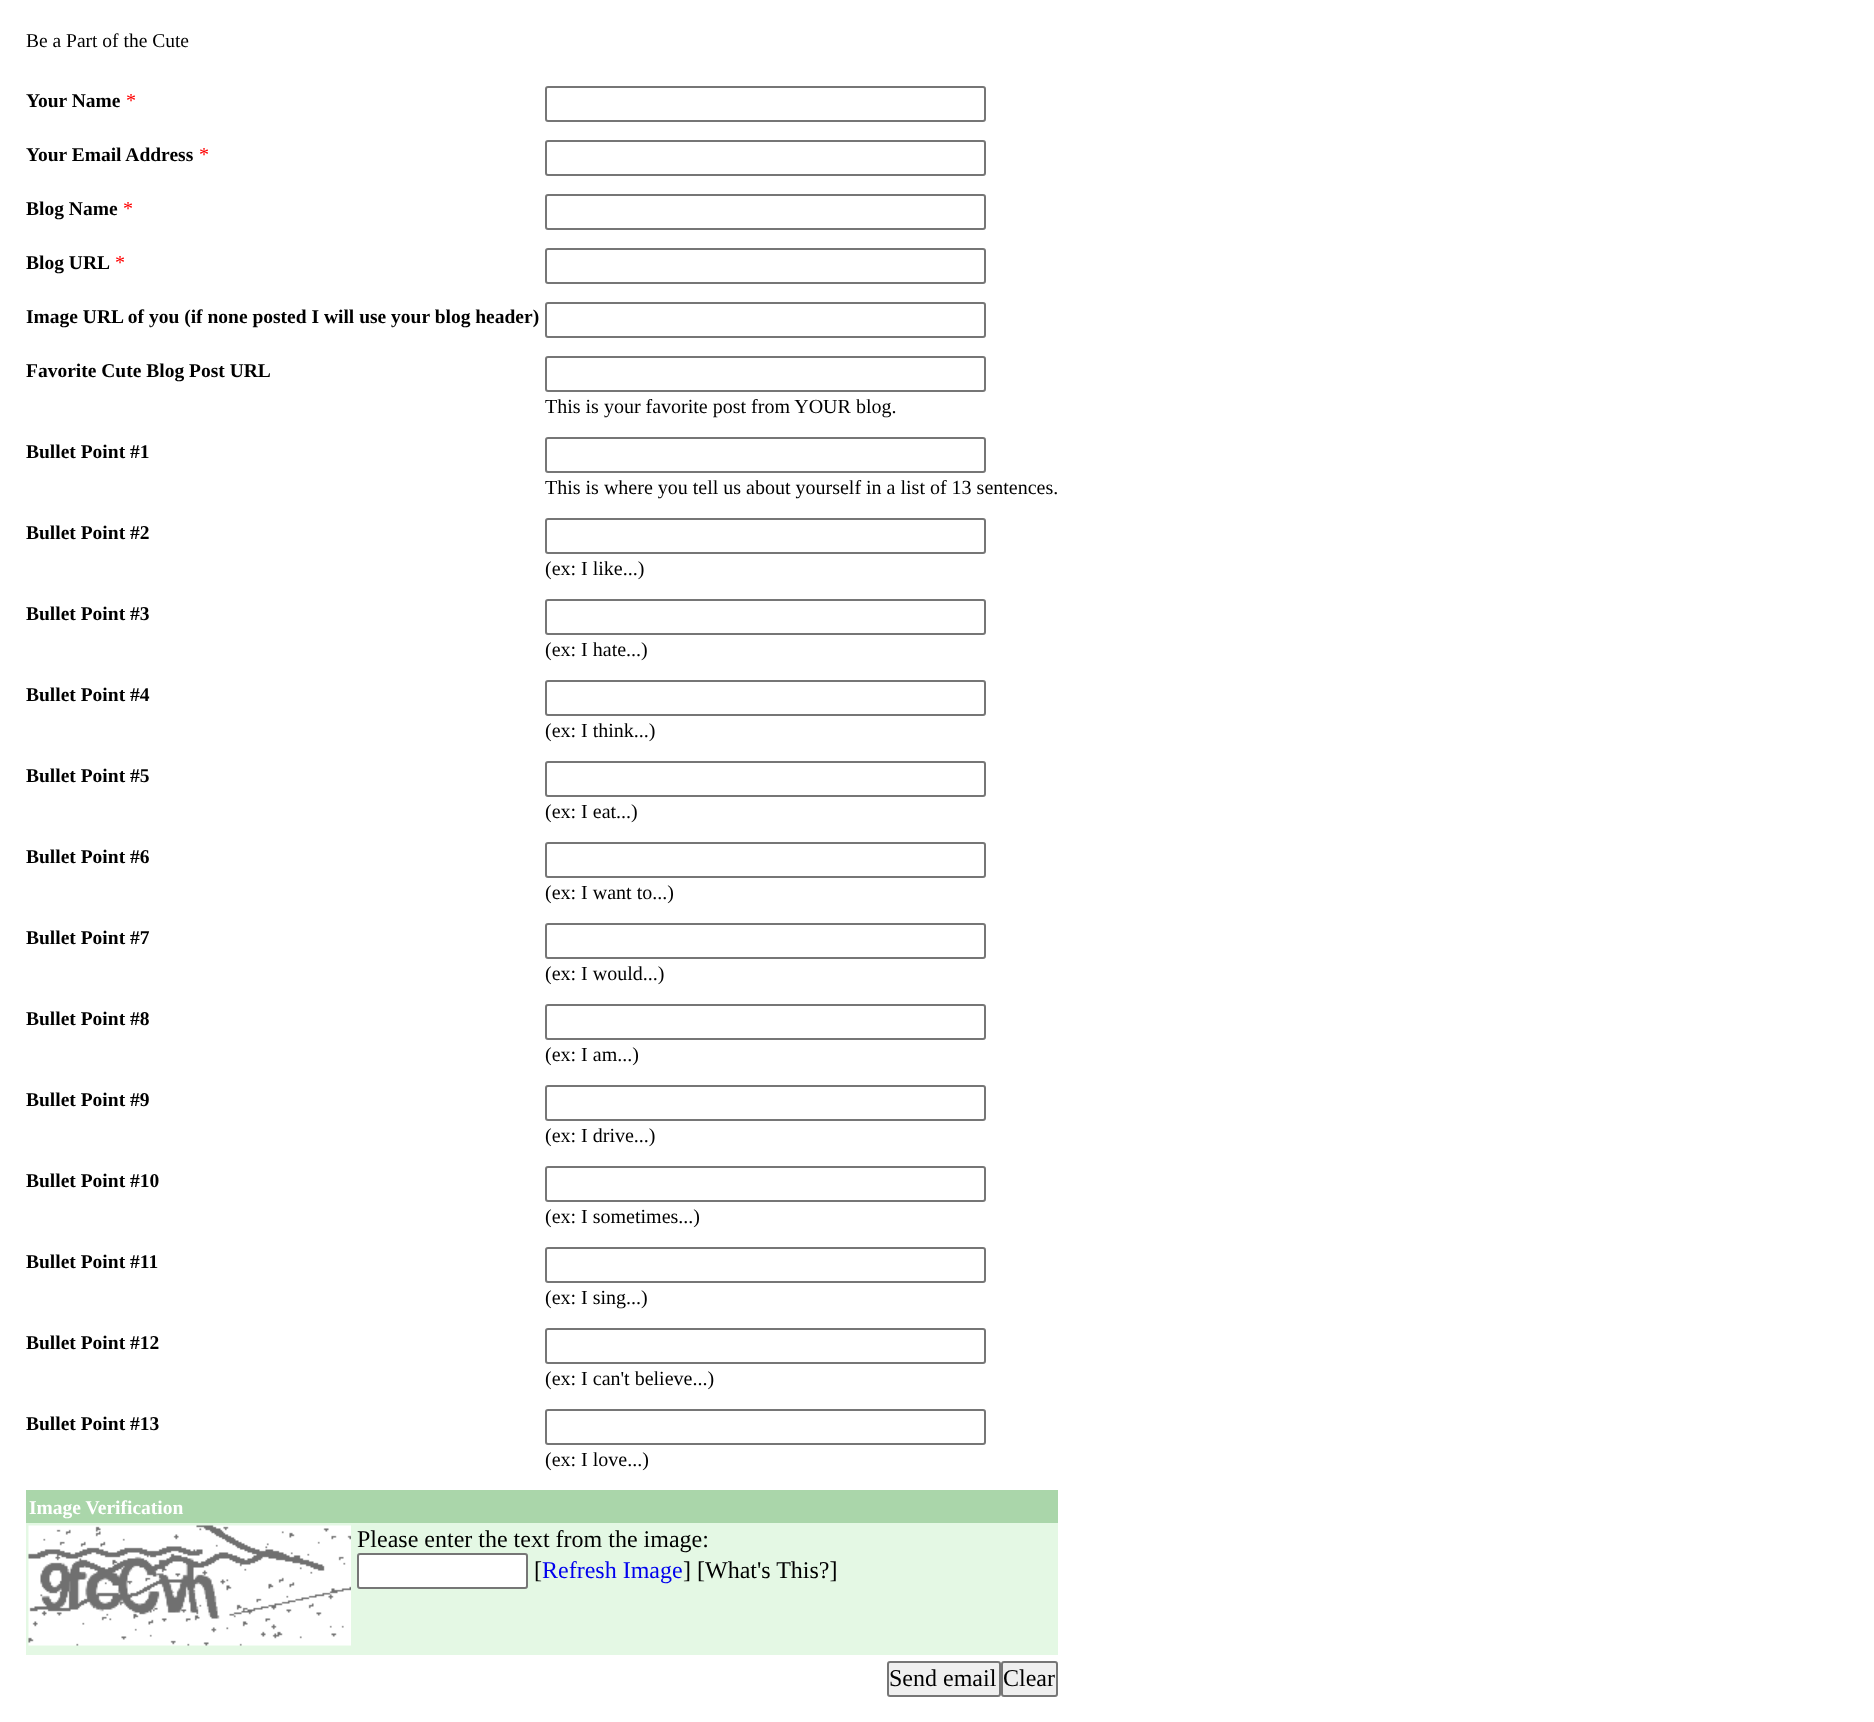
<!DOCTYPE html>
<meta charset="utf-8">
<style>body { margin: 0 } canvas { display: block }</style>
<canvas id="canvas" width="1874" height="1722"></canvas>
<script type="module">
  const canvas = document.getElementById("canvas");
  const ctx = canvas.getContext("2d");
  ctx.miterLimit = 4;
  ctx.fontKerning = "normal";
  async function loadImage(src) {
    const img = new Image();
    img.src = src;
    await img.decode();
    return img;
  }

  ctx.fillStyle = "#ffffff";
  ctx.fillRect(0, 0, 1874, 1722);
  ctx.font = "19.5px Liberation Serif";
  ctx.fillStyle = "#000000";
  ctx.fillText("Be a Part of the Cute", 26, 47);
  ctx.font = "bold 19.5px Liberation Serif";
  ctx.fillText("Your Name", 26, 107);
  ctx.font = "20px Liberation Serif";
  ctx.fillStyle = "#ff0000";
  ctx.fillText("*", 126, 107);
  ctx.beginPath();
  ctx.roundRect(546, 87, 439, 34, 2);
  ctx.strokeStyle = "#767676";
  ctx.lineWidth = 2;
  ctx.stroke();
  ctx.font = "bold 19.5px Liberation Serif";
  ctx.fillStyle = "#000000";
  ctx.fillText("Your Email Address", 26, 161);
  ctx.font = "20px Liberation Serif";
  ctx.fillStyle = "#ff0000";
  ctx.fillText("*", 199, 161);
  ctx.beginPath();
  ctx.roundRect(546, 141, 439, 34, 2);
  ctx.stroke();
  ctx.font = "bold 19.5px Liberation Serif";
  ctx.fillStyle = "#000000";
  ctx.fillText("Blog Name", 26, 215);
  ctx.font = "20px Liberation Serif";
  ctx.fillStyle = "#ff0000";
  ctx.fillText("*", 123, 215);
  ctx.beginPath();
  ctx.roundRect(546, 195, 439, 34, 2);
  ctx.stroke();
  ctx.font = "bold 19.5px Liberation Serif";
  ctx.fillStyle = "#000000";
  ctx.fillText("Blog URL", 26, 269);
  ctx.font = "20px Liberation Serif";
  ctx.fillStyle = "#ff0000";
  ctx.fillText("*", 115, 269);
  ctx.beginPath();
  ctx.roundRect(546, 249, 439, 34, 2);
  ctx.stroke();
  ctx.font = "bold 19.5px Liberation Serif";
  ctx.fillStyle = "#000000";
  ctx.fillText("Image URL of you (if none posted I will use your blog header)", 26, 323);
  ctx.beginPath();
  ctx.roundRect(546, 303, 439, 34, 2);
  ctx.stroke();
  ctx.fillText("Favorite Cute Blog Post URL", 26, 377);
  ctx.beginPath();
  ctx.roundRect(546, 357, 439, 34, 2);
  ctx.stroke();
  ctx.font = "20px Liberation Serif";
  ctx.fillText("This is your favorite post from YOUR blog.", 545, 413);
  ctx.font = "bold 19.5px Liberation Serif";
  ctx.fillText("Bullet Point #1", 26, 458);
  ctx.beginPath();
  ctx.roundRect(546, 438, 439, 34, 2);
  ctx.stroke();
  ctx.font = "20px Liberation Serif";
  ctx.fillText("This is where you tell us about yourself in a list of 13 sentences.", 545, 494);
  ctx.font = "bold 19.5px Liberation Serif";
  ctx.fillText("Bullet Point #2", 26, 539);
  ctx.beginPath();
  ctx.roundRect(546, 519, 439, 34, 2);
  ctx.stroke();
  ctx.font = "20px Liberation Serif";
  ctx.fillText("(ex: I like...)", 545, 575);
  ctx.font = "bold 19.5px Liberation Serif";
  ctx.fillText("Bullet Point #3", 26, 620);
  ctx.beginPath();
  ctx.roundRect(546, 600, 439, 34, 2);
  ctx.stroke();
  ctx.font = "20px Liberation Serif";
  ctx.fillText("(ex: I hate...)", 545, 656);
  ctx.font = "bold 19.5px Liberation Serif";
  ctx.fillText("Bullet Point #4", 26, 701);
  ctx.beginPath();
  ctx.roundRect(546, 681, 439, 34, 2);
  ctx.stroke();
  ctx.font = "20px Liberation Serif";
  ctx.fillText("(ex: I think...)", 545, 737);
  ctx.font = "bold 19.5px Liberation Serif";
  ctx.fillText("Bullet Point #5", 26, 782);
  ctx.beginPath();
  ctx.roundRect(546, 762, 439, 34, 2);
  ctx.stroke();
  ctx.font = "20px Liberation Serif";
  ctx.fillText("(ex: I eat...)", 545, 818);
  ctx.font = "bold 19.5px Liberation Serif";
  ctx.fillText("Bullet Point #6", 26, 863);
  ctx.beginPath();
  ctx.roundRect(546, 843, 439, 34, 2);
  ctx.stroke();
  ctx.font = "20px Liberation Serif";
  ctx.fillText("(ex: I want to...)", 545, 899);
  ctx.font = "bold 19.5px Liberation Serif";
  ctx.fillText("Bullet Point #7", 26, 944);
  ctx.beginPath();
  ctx.roundRect(546, 924, 439, 34, 2);
  ctx.stroke();
  ctx.font = "20px Liberation Serif";
  ctx.fillText("(ex: I would...)", 545, 980);
  ctx.font = "bold 19.5px Liberation Serif";
  ctx.fillText("Bullet Point #8", 26, 1025);
  ctx.beginPath();
  ctx.roundRect(546, 1005, 439, 34, 2);
  ctx.stroke();
  ctx.font = "20px Liberation Serif";
  ctx.fillText("(ex: I am...)", 545, 1061);
  ctx.font = "bold 19.5px Liberation Serif";
  ctx.fillText("Bullet Point #9", 26, 1106);
  ctx.beginPath();
  ctx.roundRect(546, 1086, 439, 34, 2);
  ctx.stroke();
  ctx.font = "20px Liberation Serif";
  ctx.fillText("(ex: I drive...)", 545, 1142);
  ctx.font = "bold 19.5px Liberation Serif";
  ctx.fillText("Bullet Point #10", 26, 1187);
  ctx.beginPath();
  ctx.roundRect(546, 1167, 439, 34, 2);
  ctx.stroke();
  ctx.font = "20px Liberation Serif";
  ctx.fillText("(ex: I sometimes...)", 545, 1223);
  ctx.font = "bold 19.5px Liberation Serif";
  ctx.fillText("Bullet Point #11", 26, 1268);
  ctx.beginPath();
  ctx.roundRect(546, 1248, 439, 34, 2);
  ctx.stroke();
  ctx.font = "20px Liberation Serif";
  ctx.fillText("(ex: I sing...)", 545, 1304);
  ctx.font = "bold 19.5px Liberation Serif";
  ctx.fillText("Bullet Point #12", 26, 1349);
  ctx.beginPath();
  ctx.roundRect(546, 1329, 439, 34, 2);
  ctx.stroke();
  ctx.font = "20px Liberation Serif";
  ctx.fillText("(ex: I can't believe...)", 545, 1385);
  ctx.font = "bold 19.5px Liberation Serif";
  ctx.fillText("Bullet Point #13", 26, 1430);
  ctx.beginPath();
  ctx.roundRect(546, 1410, 439, 34, 2);
  ctx.stroke();
  ctx.font = "20px Liberation Serif";
  ctx.fillText("(ex: I love...)", 545, 1466);
  ctx.fillStyle = "#e4f8e4";
  ctx.fillRect(26, 1523, 1032, 132);
  ctx.fillStyle = "#aad6aa";
  ctx.fillRect(26, 1490, 1032, 33);
  ctx.font = "bold 19.5px Liberation Serif";
  ctx.fillStyle = "#ffffff";
  ctx.fillText("Image Verification", 29, 1514);
  ctx.drawImage(await loadImage("img1.png"), 28, 1525, 323, 121);
  ctx.font = "24px Liberation Serif";
  ctx.fillStyle = "#000000";
  ctx.fillText("Please enter the text from the image:", 357, 1547);
  ctx.fillStyle = "#ffffff";
  ctx.beginPath();
  ctx.roundRect(358, 1554, 169, 34, 2);
  ctx.fill();
  ctx.stroke();
  ctx.fillStyle = "#000000";
  ctx.fillText("[", 534, 1578);
  ctx.fillStyle = "#0000ee";
  ctx.fillText("Refresh Image", 542, 1578);
  ctx.fillStyle = "#000000";
  ctx.fillText("] [What's This?]", 683, 1578);
  ctx.fillStyle = "#efefef";
  ctx.beginPath();
  ctx.roundRect(888, 1662, 112, 34, 2);
  ctx.fill();
  ctx.stroke();
  ctx.fillStyle = "#000000";
  ctx.fillText("Send email", 889, 1686);
  ctx.fillStyle = "#efefef";
  ctx.beginPath();
  ctx.roundRect(1002, 1662, 55, 34, 2);
  ctx.fill();
  ctx.stroke();
  ctx.save();
  ctx.beginPath();
  ctx.rect(1004, 1664, 51, 30);
  ctx.clip();
  ctx.fillStyle = "#000000";
  ctx.fillText("Clear", 1003, 1686);
  ctx.restore();
</script>
